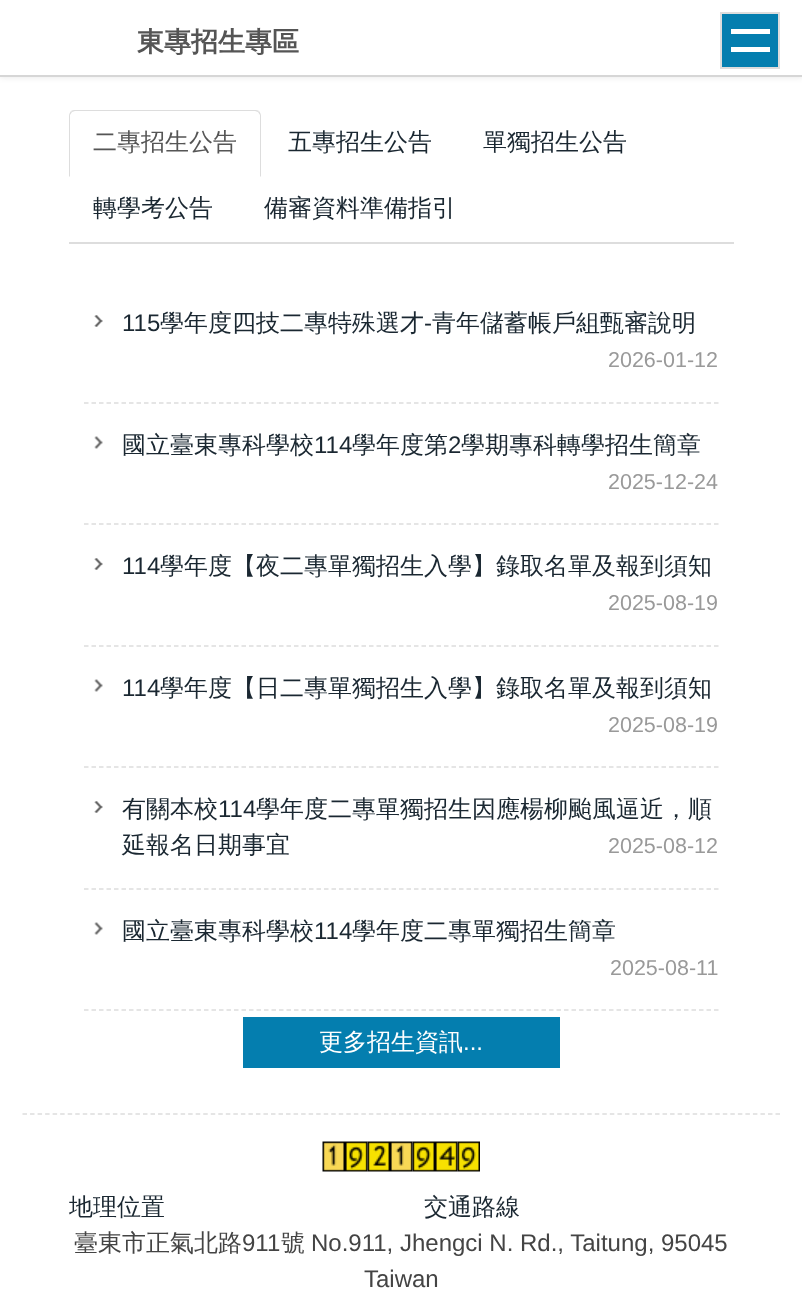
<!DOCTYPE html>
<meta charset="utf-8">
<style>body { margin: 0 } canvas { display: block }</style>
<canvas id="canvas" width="802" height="1296"></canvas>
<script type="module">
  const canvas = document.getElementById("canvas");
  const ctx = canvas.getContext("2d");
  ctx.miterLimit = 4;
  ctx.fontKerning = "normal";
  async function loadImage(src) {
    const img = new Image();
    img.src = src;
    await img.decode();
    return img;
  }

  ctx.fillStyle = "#ffffff";
  ctx.fillRect(0, 0, 802, 1296);
  ctx.fillStyle = "rgba(0, 0, 0, 0.1)";
  ctx.filter = "blur(3px)";
  ctx.beginPath();
  ctx.rect(0, 0, 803, 77);
  ctx.fill();
  ctx.filter = "none";
  ctx.fillStyle = "#ffffff";
  ctx.fillRect(0, 0, 802, 75);
  ctx.fillStyle = "#d6d6d6";
  ctx.fillRect(0, 75, 802, 2);
  ctx.font = "bold 27px WenQuanYi Zen Hei";
  ctx.fillStyle = "#555555";
  ctx.fillText("東專招生專區", 137, 51);
  ctx.fillStyle = "#047eaf";
  ctx.beginPath();
  ctx.rect(721, 13, 58, 55);
  ctx.fill();
  ctx.strokeStyle = "#dddddd";
  ctx.lineWidth = 2;
  ctx.stroke();
  ctx.fillStyle = "#ffffff";
  ctx.fillRect(731, 29, 39, 5);
  ctx.fillRect(731, 47, 39, 5);
  ctx.fillStyle = "#dddddd";
  ctx.fillRect(69, 242, 665, 2);
  ctx.beginPath();
  ctx.moveTo(75, 110);
  ctx.bezierCurveTo(74, 110, 72, 110, 71, 111);
  ctx.lineTo(72, 112);
  ctx.lineTo(75, 111);
  ctx.lineTo(255, 111);
  ctx.lineTo(258, 112);
  ctx.lineTo(259, 111);
  ctx.bezierCurveTo(258, 110, 256, 110, 255, 110);
  ctx.closePath();
  ctx.fill();
  ctx.beginPath();
  ctx.moveTo(259, 111);
  ctx.bezierCurveTo(260, 112, 261, 114, 261, 116);
  ctx.lineTo(261, 177);
  ctx.lineTo(260, 176);
  ctx.lineTo(260, 115);
  ctx.lineTo(258, 112);
  ctx.closePath();
  ctx.fill();
  ctx.beginPath();
  ctx.moveTo(69, 177);
  ctx.lineTo(70, 176);
  ctx.lineTo(70, 115);
  ctx.lineTo(72, 112);
  ctx.lineTo(71, 111);
  ctx.bezierCurveTo(70, 112, 69, 114, 69, 116);
  ctx.closePath();
  ctx.fill();
  ctx.font = "500 24px WenQuanYi Zen Hei";
  ctx.fillStyle = "#555555";
  ctx.fillText("二專招生公告", 93, 150);
  ctx.fillStyle = "#1a2731";
  ctx.fillText("五專招生公告", 288, 150);
  ctx.fillText("單獨招生公告", 483, 150);
  ctx.fillText("轉學考公告", 93, 216);
  ctx.fillText("備審資料準備指引", 264, 216);
  ctx.drawImage(await loadImage("img1.png"), 94, 315, 9, 12);
  ctx.beginPath();
  ctx.moveTo(84, 403);
  ctx.lineTo(718.5, 403);
  ctx.lineWidth = 1.5;
  ctx.setLineDash([4.5, 3]);
  ctx.stroke();
  ctx.font = "24px Liberation Sans";
  ctx.fillText("115", 122, 331);
  ctx.font = "500 24px WenQuanYi Zen Hei";
  ctx.fillText("學年度四技二專特殊選才", 160, 331);
  ctx.font = "24px Liberation Sans";
  ctx.fillText("-", 424, 331);
  ctx.font = "500 24px WenQuanYi Zen Hei";
  ctx.fillText("青年儲蓄帳戶組甄審說明", 432, 331);
  ctx.font = "21.5px Liberation Sans";
  ctx.fillStyle = "#999999";
  ctx.fillText("2026-01-12", 608, 367);
  ctx.drawImage(await loadImage("img2.png"), 94, 436, 9, 13);
  ctx.beginPath();
  ctx.moveTo(84, 524);
  ctx.lineTo(718.5, 524);
  ctx.stroke();
  ctx.font = "500 24px WenQuanYi Zen Hei";
  ctx.fillStyle = "#1a2731";
  ctx.fillText("國立臺東專科學校", 122, 453);
  ctx.font = "24px Liberation Sans";
  ctx.fillText("114", 314, 453);
  ctx.font = "500 24px WenQuanYi Zen Hei";
  ctx.fillText("學年度第", 352, 453);
  ctx.font = "24px Liberation Sans";
  ctx.fillText("2", 448, 453);
  ctx.font = "500 24px WenQuanYi Zen Hei";
  ctx.fillText("學期專科轉學招生簡章", 461, 453);
  ctx.font = "21.5px Liberation Sans";
  ctx.fillStyle = "#999999";
  ctx.fillText("2025-12-24", 608, 489);
  ctx.drawImage(await loadImage("img1.png"), 94, 558, 9, 12);
  ctx.beginPath();
  ctx.moveTo(84, 646);
  ctx.lineTo(718.5, 646);
  ctx.stroke();
  ctx.font = "24px Liberation Sans";
  ctx.fillStyle = "#1a2731";
  ctx.fillText("114", 122, 574);
  ctx.font = "500 24px WenQuanYi Zen Hei";
  ctx.fillText("學年度【夜二專單獨招生入學】錄取名單及報到須知", 160, 574);
  ctx.font = "21.5px Liberation Sans";
  ctx.fillStyle = "#999999";
  ctx.fillText("2025-08-19", 608, 610);
  ctx.drawImage(await loadImage("img2.png"), 94, 679, 9, 13);
  ctx.beginPath();
  ctx.moveTo(84, 767);
  ctx.lineTo(718.5, 767);
  ctx.stroke();
  ctx.font = "24px Liberation Sans";
  ctx.fillStyle = "#1a2731";
  ctx.fillText("114", 122, 696);
  ctx.font = "500 24px WenQuanYi Zen Hei";
  ctx.fillText("學年度【日二專單獨招生入學】錄取名單及報到須知", 160, 696);
  ctx.font = "21.5px Liberation Sans";
  ctx.fillStyle = "#999999";
  ctx.fillText("2025-08-19", 608, 732);
  ctx.drawImage(await loadImage("img1.png"), 94, 801, 9, 12);
  ctx.beginPath();
  ctx.moveTo(84, 889);
  ctx.lineTo(718.5, 889);
  ctx.stroke();
  ctx.font = "500 24px WenQuanYi Zen Hei";
  ctx.fillStyle = "#1a2731";
  ctx.fillText("有關本校", 122, 817);
  ctx.font = "24px Liberation Sans";
  ctx.fillText("114", 218, 817);
  ctx.font = "500 24px WenQuanYi Zen Hei";
  ctx.fillText("學年度二專單獨招生因應楊柳颱風逼近，順", 256, 817);
  ctx.fillText("延報名日期事宜", 122, 853);
  ctx.font = "21.5px Liberation Sans";
  ctx.fillStyle = "#999999";
  ctx.fillText("2025-08-12", 608, 853);
  ctx.drawImage(await loadImage("img2.png"), 94, 922, 9, 13);
  ctx.beginPath();
  ctx.moveTo(84, 1010);
  ctx.lineTo(718.5, 1010);
  ctx.stroke();
  ctx.font = "500 24px WenQuanYi Zen Hei";
  ctx.fillStyle = "#1a2731";
  ctx.fillText("國立臺東專科學校", 122, 939);
  ctx.font = "24px Liberation Sans";
  ctx.fillText("114", 314, 939);
  ctx.font = "500 24px WenQuanYi Zen Hei";
  ctx.fillText("學年度二專單獨招生簡章", 352, 939);
  ctx.font = "21.5px Liberation Sans";
  ctx.fillStyle = "#999999";
  ctx.fillText("2025-08-11", 610, 975);
  ctx.fillStyle = "#047eaf";
  ctx.fillRect(243, 1017, 317, 51);
  ctx.font = "500 24px WenQuanYi Zen Hei";
  ctx.fillStyle = "#ffffff";
  ctx.fillText("更多招生資訊", 319, 1050);
  ctx.font = "24px Liberation Sans";
  ctx.fillText("...", 463, 1050);
  ctx.beginPath();
  ctx.moveTo(22.5, 1114);
  ctx.lineTo(780, 1114);
  ctx.setLineDash([4.5, 3.03]);
  ctx.stroke();
  ctx.drawImage(await loadImage("img3.png"), 322, 1141, 23, 31);
  ctx.drawImage(await loadImage("img4.png"), 345, 1141, 23, 31);
  ctx.drawImage(await loadImage("img5.png"), 367, 1141, 23, 31);
  ctx.drawImage(await loadImage("img6.png"), 390, 1141, 23, 31);
  ctx.drawImage(await loadImage("img7.png"), 412, 1141, 23, 31);
  ctx.drawImage(await loadImage("img8.png"), 435, 1141, 23, 31);
  ctx.drawImage(await loadImage("img9.png"), 457, 1141, 23, 31);
  ctx.font = "500 24px WenQuanYi Zen Hei";
  ctx.fillStyle = "#1a2731";
  ctx.fillText("地理位置", 69, 1215);
  ctx.fillText("交通路線", 424, 1215);
  ctx.fillStyle = "#444444";
  ctx.fillText("臺東市正氣北路", 74, 1251);
  ctx.font = "24px Liberation Sans";
  ctx.fillText("911", 242, 1251);
  ctx.font = "500 24px WenQuanYi Zen Hei";
  ctx.fillText("號", 281, 1251);
  ctx.font = "24px Liberation Sans";
  ctx.fillText("No.911, Jhengci N. Rd., Taitung, 95045", 311, 1251);
  ctx.fillText("Taiwan", 364, 1287);
</script>
